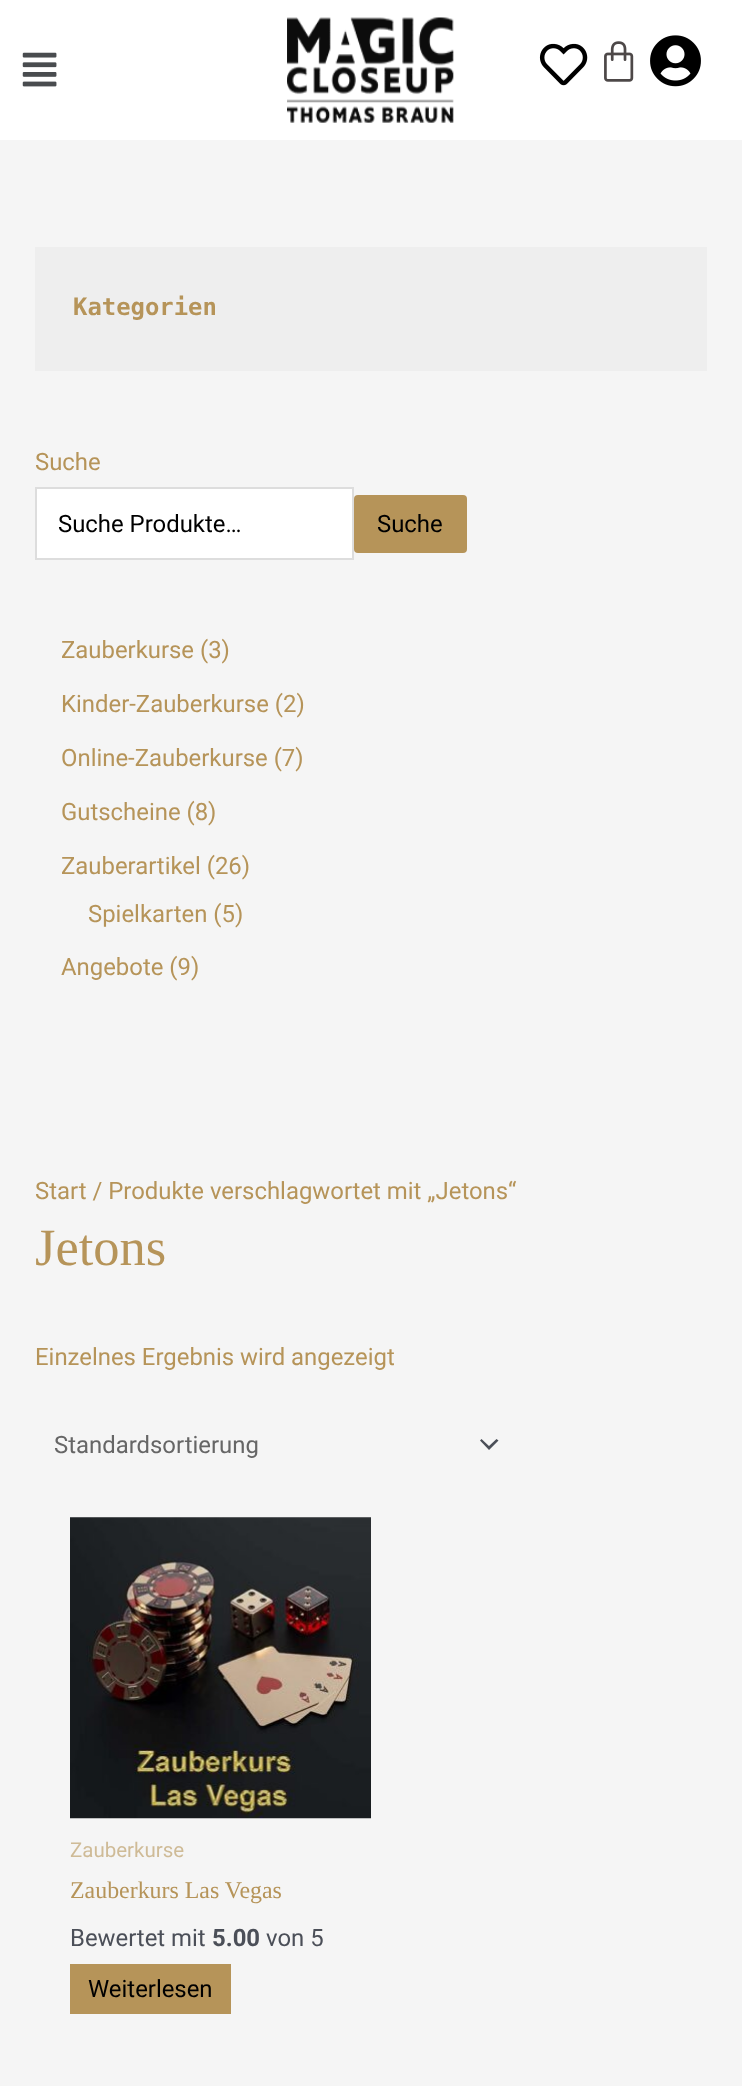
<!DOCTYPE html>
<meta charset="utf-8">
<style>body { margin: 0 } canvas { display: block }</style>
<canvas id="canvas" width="742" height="2086"></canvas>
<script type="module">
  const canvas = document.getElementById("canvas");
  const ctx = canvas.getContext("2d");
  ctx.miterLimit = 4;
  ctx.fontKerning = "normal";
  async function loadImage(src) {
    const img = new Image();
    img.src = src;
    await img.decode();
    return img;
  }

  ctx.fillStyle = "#f5f5f5";
  ctx.fillRect(0, 0, 742, 2086);
  ctx.fillStyle = "#ffffff";
  ctx.fillRect(0, 0, 742, 140);
  ctx.drawImage(await loadImage("img1.png"), 22, 52, 35, 35);
  ctx.drawImage(await loadImage("img2.png"), 287, 17, 167, 106);
  ctx.drawImage(await loadImage("img3.png"), 539, 43, 49, 43);
  ctx.drawImage(await loadImage("img4.png"), 604, 41, 30, 41);
  ctx.drawImage(await loadImage("img5.png"), 650, 35, 51, 52);
  ctx.fillStyle = "#eeeeee";
  ctx.fillRect(35, 247, 672, 124);
  ctx.font = "bold 23.9px DejaVu Sans Mono";
  ctx.fillStyle = "#b69459";
  ctx.fillText("Kategorien", 73, 315);
  ctx.font = "23.9px Roboto";
  ctx.fillText("Suche", 35, 470);
  ctx.fillStyle = "#ffffff";
  ctx.beginPath();
  ctx.rect(36, 488, 317, 71);
  ctx.fill();
  ctx.strokeStyle = "#dddddd";
  ctx.lineWidth = 2;
  ctx.stroke();
  ctx.fillStyle = "#000000";
  ctx.fillText("Suche Produkte…", 58, 532);
  ctx.fillStyle = "#b69459";
  ctx.beginPath();
  ctx.roundRect(354, 495, 113, 58, 4);
  ctx.fill();
  ctx.fillStyle = "#000000";
  ctx.fillText("Suche", 377, 532);
  ctx.fillStyle = "#b69459";
  ctx.fillText("Zauberkurse (3)", 61, 658);
  ctx.fillText("Kinder-Zauberkurse (2)", 61, 712);
  ctx.fillText("Online-Zauberkurse (7)", 61, 766);
  ctx.fillText("Gutscheine (8)", 61, 820);
  ctx.fillText("Zauberartikel (26)", 61, 874);
  ctx.fillText("Spielkarten (5)", 88, 922);
  ctx.fillText("Angebote (9)", 61, 975);
  ctx.fillText("Start / Produkte verschlagwortet mit „Jetons“", 35, 1199);
  ctx.font = "52.5px Liberation Serif";
  ctx.fillText("Jetons", 35, 1265);
  ctx.font = "23.9px Roboto";
  ctx.fillText("Einzelnes Ergebnis wird angezeigt", 35, 1365);
  ctx.fillStyle = "#4b4f58";
  ctx.beginPath();
  ctx.moveTo(480, 1440.5);
  ctx.lineTo(489, 1450);
  ctx.lineTo(498.5, 1440.5);
  ctx.lineTo(496.5, 1439);
  ctx.lineTo(489, 1446);
  ctx.lineTo(481.5, 1439);
  ctx.closePath();
  ctx.fill();
  ctx.fillStyle = "#666666";
  ctx.fillText("Standardsortierung", 54, 1453);
  ctx.drawImage(await loadImage("img6.png"), 70, 1517, 301, 302);
  ctx.font = "20.5px Roboto";
  ctx.fillStyle = "#cfbb97";
  ctx.fillText("Zauberkurse", 70, 1857);
  ctx.font = "23.9px Liberation Serif";
  ctx.fillStyle = "#b69459";
  ctx.fillText("Zauberkurs Las Vegas", 70, 1898);
  ctx.font = "23.9px Roboto";
  ctx.fillStyle = "#4b4f58";
  ctx.fillText("Bewertet mit", 70, 1946);
  ctx.font = "bold 23.9px Roboto";
  ctx.fillText("5.00", 212, 1946);
  ctx.font = "23.9px Roboto";
  ctx.fillText("von 5", 266, 1946);
  ctx.fillStyle = "#b69459";
  ctx.fillRect(70, 1964, 161, 50);
  ctx.fillStyle = "#000000";
  ctx.fillText("Weiterlesen", 88, 1997);
</script>
